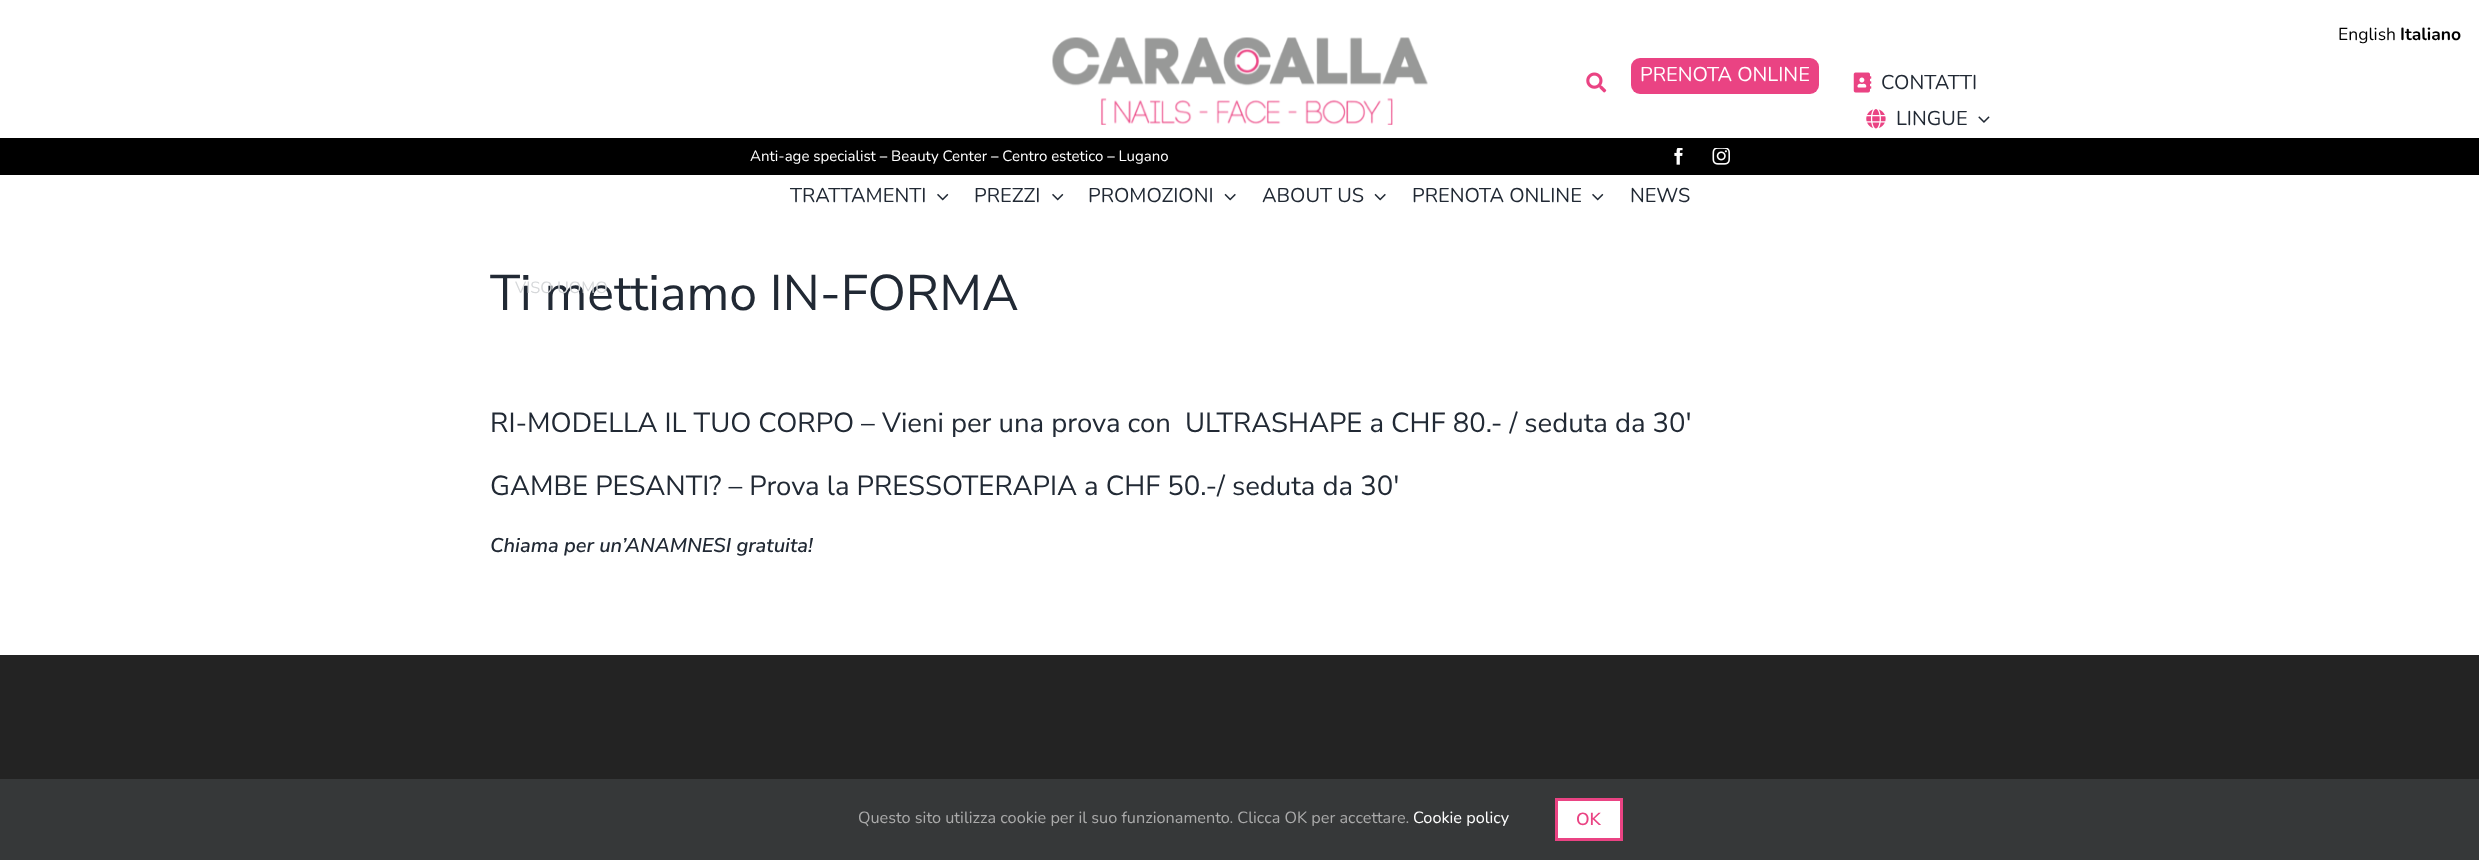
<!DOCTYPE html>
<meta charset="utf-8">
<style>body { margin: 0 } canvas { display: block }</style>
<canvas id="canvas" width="2479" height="860"></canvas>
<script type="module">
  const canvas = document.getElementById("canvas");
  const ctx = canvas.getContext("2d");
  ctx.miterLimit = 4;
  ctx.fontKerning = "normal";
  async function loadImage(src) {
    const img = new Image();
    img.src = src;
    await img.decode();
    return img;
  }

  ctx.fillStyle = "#ffffff";
  ctx.fillRect(0, 0, 2479, 860);
  ctx.font = "17.5px Nunito";
  ctx.fillStyle = "#000000";
  ctx.fillText("English", 2338, 40);
  ctx.font = "bold 17.5px Nunito";
  ctx.fillText("Italiano", 2400, 40);
  ctx.fillStyle = "#363839";
  ctx.fillRect(0, 779, 2479, 81);
  ctx.font = "16.25px Nunito";
  ctx.fillStyle = "#ababab";
  ctx.fillText("Questo sito utilizza cookie per il suo funzionamento. Clicca OK per accettare.", 858, 823);
  ctx.fillStyle = "#ffffff";
  ctx.fillText("Cookie policy", 1413, 823);
  ctx.beginPath();
  ctx.rect(1556.5, 799.5, 65, 40);
  ctx.fill();
  ctx.strokeStyle = "#ea4383";
  ctx.lineWidth = 3;
  ctx.stroke();
  ctx.font = "600 17.5px Nunito Sans";
  ctx.fillStyle = "#ea4383";
  ctx.fillText("OK", 1576, 825);
  ctx.drawImage(await loadImage("img1.png"), 1052, 37, 376, 88);
  ctx.drawImage(await loadImage("img2.png"), 1586, 72, 21, 21);
  ctx.beginPath();
  ctx.roundRect(1631, 58, 188, 36, 9);
  ctx.fill();
  ctx.font = "20px Nunito";
  ctx.fillStyle = "#ffffff";
  ctx.fillText("PRENOTA ONLINE", 1640, 81);
  ctx.drawImage(await loadImage("img3.png"), 1853, 72, 19, 21);
  ctx.fillStyle = "#212934";
  ctx.fillText("CONTATTI", 1881, 89);
  ctx.drawImage(await loadImage("img4.png"), 1866, 109, 20, 20);
  ctx.fillText("LINGUE", 1896, 125);
  ctx.drawImage(await loadImage("img5.png"), 1978, 116, 12, 7);
  ctx.fillStyle = "#000000";
  ctx.fillRect(0, 138, 2479, 37);
  ctx.font = "15px Nunito";
  ctx.fillStyle = "#ffffff";
  ctx.fillText("Anti-age specialist – Beauty Center – Centro estetico – Lugano", 750, 161);
  ctx.drawImage(await loadImage("img6.png"), 1674, 148, 9, 17);
  ctx.drawImage(await loadImage("img7.png"), 1712, 148, 18, 17);
  ctx.font = "20px Nunito";
  ctx.fillStyle = "#212934";
  ctx.fillText("PREZZI", 974, 202);
  ctx.drawImage(await loadImage("img8.png"), 1052, 193, 12, 8);
  ctx.font = "50px Nunito Sans";
  ctx.fillText("Ti mettiamo IN-FORMA", 490, 310);
  ctx.font = "16.25px Nunito";
  ctx.fillStyle = "#d6d8da";
  ctx.fillText("VISO UOMO", 515, 293);
  ctx.font = "20px Nunito";
  ctx.fillStyle = "#212934";
  ctx.fillText("TRATTAMENTI", 790, 202);
  ctx.drawImage(await loadImage("img8.png"), 937, 193, 12, 8);
  ctx.fillText("PROMOZIONI", 1088, 202);
  ctx.drawImage(await loadImage("img9.png"), 1224, 193, 12, 8);
  ctx.fillText("ABOUT US", 1262, 202);
  ctx.drawImage(await loadImage("img9.png"), 1374, 193, 12, 8);
  ctx.fillText("PRENOTA ONLINE", 1412, 202);
  ctx.drawImage(await loadImage("img8.png"), 1592, 193, 12, 8);
  ctx.fillText("NEWS", 1630, 202);
  ctx.font = "27.5px Nunito Sans";
  ctx.fillText("RI-MODELLA IL TUO CORPO – Vieni per una prova con  ULTRASHAPE a CHF 80.- / seduta da 30′", 490, 432);
  ctx.fillText("GAMBE PESANTI? – Prova la PRESSOTERAPIA a CHF 50.-/ seduta da 30′", 490, 495);
  ctx.font = "italic 600 20px Nunito Sans";
  ctx.fillText("Chiama per un’ANAMNESI gratuita!", 490, 552);
  ctx.fillStyle = "#232323";
  ctx.fillRect(0, 655, 2479, 124);
</script>
